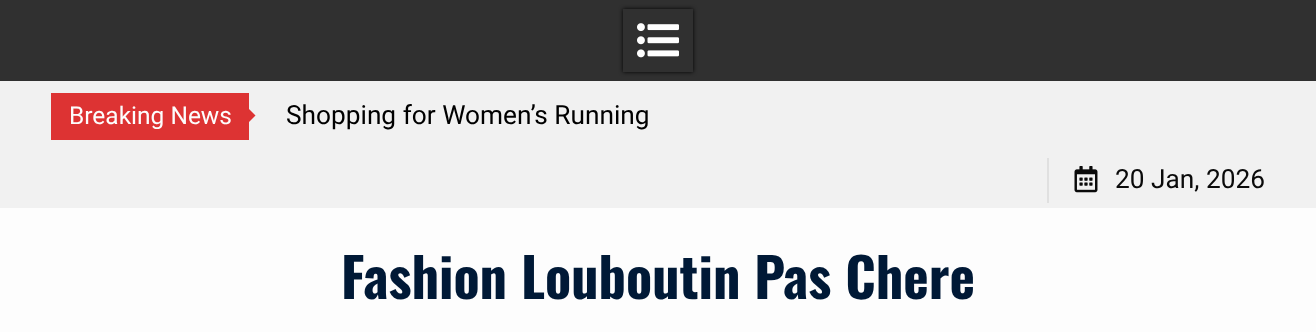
<!DOCTYPE html>
<meta charset="utf-8">
<style>body { margin: 0 } canvas { display: block }</style>
<canvas id="canvas" width="1316" height="332"></canvas>
<script type="module">
  const canvas = document.getElementById("canvas");
  const ctx = canvas.getContext("2d");
  ctx.miterLimit = 4;
  ctx.fontKerning = "normal";
  async function loadImage(src) {
    const img = new Image();
    img.src = src;
    await img.decode();
    return img;
  }

  ctx.fillStyle = "#fdfdfd";
  ctx.fillRect(0, 0, 1316, 332);
  ctx.fillStyle = "#f1f1f1";
  ctx.fillRect(0, 81, 1316, 127);
  ctx.fillStyle = "#dd3333";
  ctx.fillRect(51, 93, 198, 47);
  ctx.font = "24.5px Roboto";
  ctx.fillStyle = "#fdfdfd";
  ctx.fillText("Breaking News", 69, 124);
  ctx.fillStyle = "#dd3333";
  ctx.beginPath();
  ctx.moveTo(238, 133);
  ctx.lineTo(238, 98);
  ctx.lineTo(255.5, 115.5);
  ctx.closePath();
  ctx.fill();
  ctx.font = "26.25px Roboto";
  ctx.fillStyle = "#000000";
  ctx.fillText("Shopping for Women’s Running", 286, 124);
  ctx.fillStyle = "#e0e0e0";
  ctx.fillRect(1047, 158, 2, 45);
  ctx.drawImage(await loadImage("img1.png"), 1074, 166, 24, 27);
  ctx.fillStyle = "#0a0a0a";
  ctx.fillText("20 Jan, 2026", 1115, 188);
  ctx.fillStyle = "#303030";
  ctx.fillRect(0, 0, 1316, 81);
  ctx.save();
  ctx.beginPath();
  ctx.moveTo(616, 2);
  ctx.lineTo(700, 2);
  ctx.lineTo(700, 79);
  ctx.lineTo(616, 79);
  ctx.closePath();
  ctx.moveTo(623, 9);
  ctx.lineTo(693, 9);
  ctx.lineTo(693, 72);
  ctx.lineTo(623, 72);
  ctx.closePath();
  ctx.clip("evenodd");
  ctx.fillStyle = "#000000";
  ctx.filter = "blur(2px)";
  ctx.beginPath();
  ctx.rect(623, 9, 70, 63);
  ctx.fill();
  ctx.filter = "none";
  ctx.restore();
  ctx.drawImage(await loadImage("img2.png"), 637, 23, 42, 35);
  ctx.font = "bold 54.25px Oswald";
  ctx.fillStyle = "#001936";
  ctx.fillText("Fashion Louboutin Pas Chere", 341, 299);
</script>
